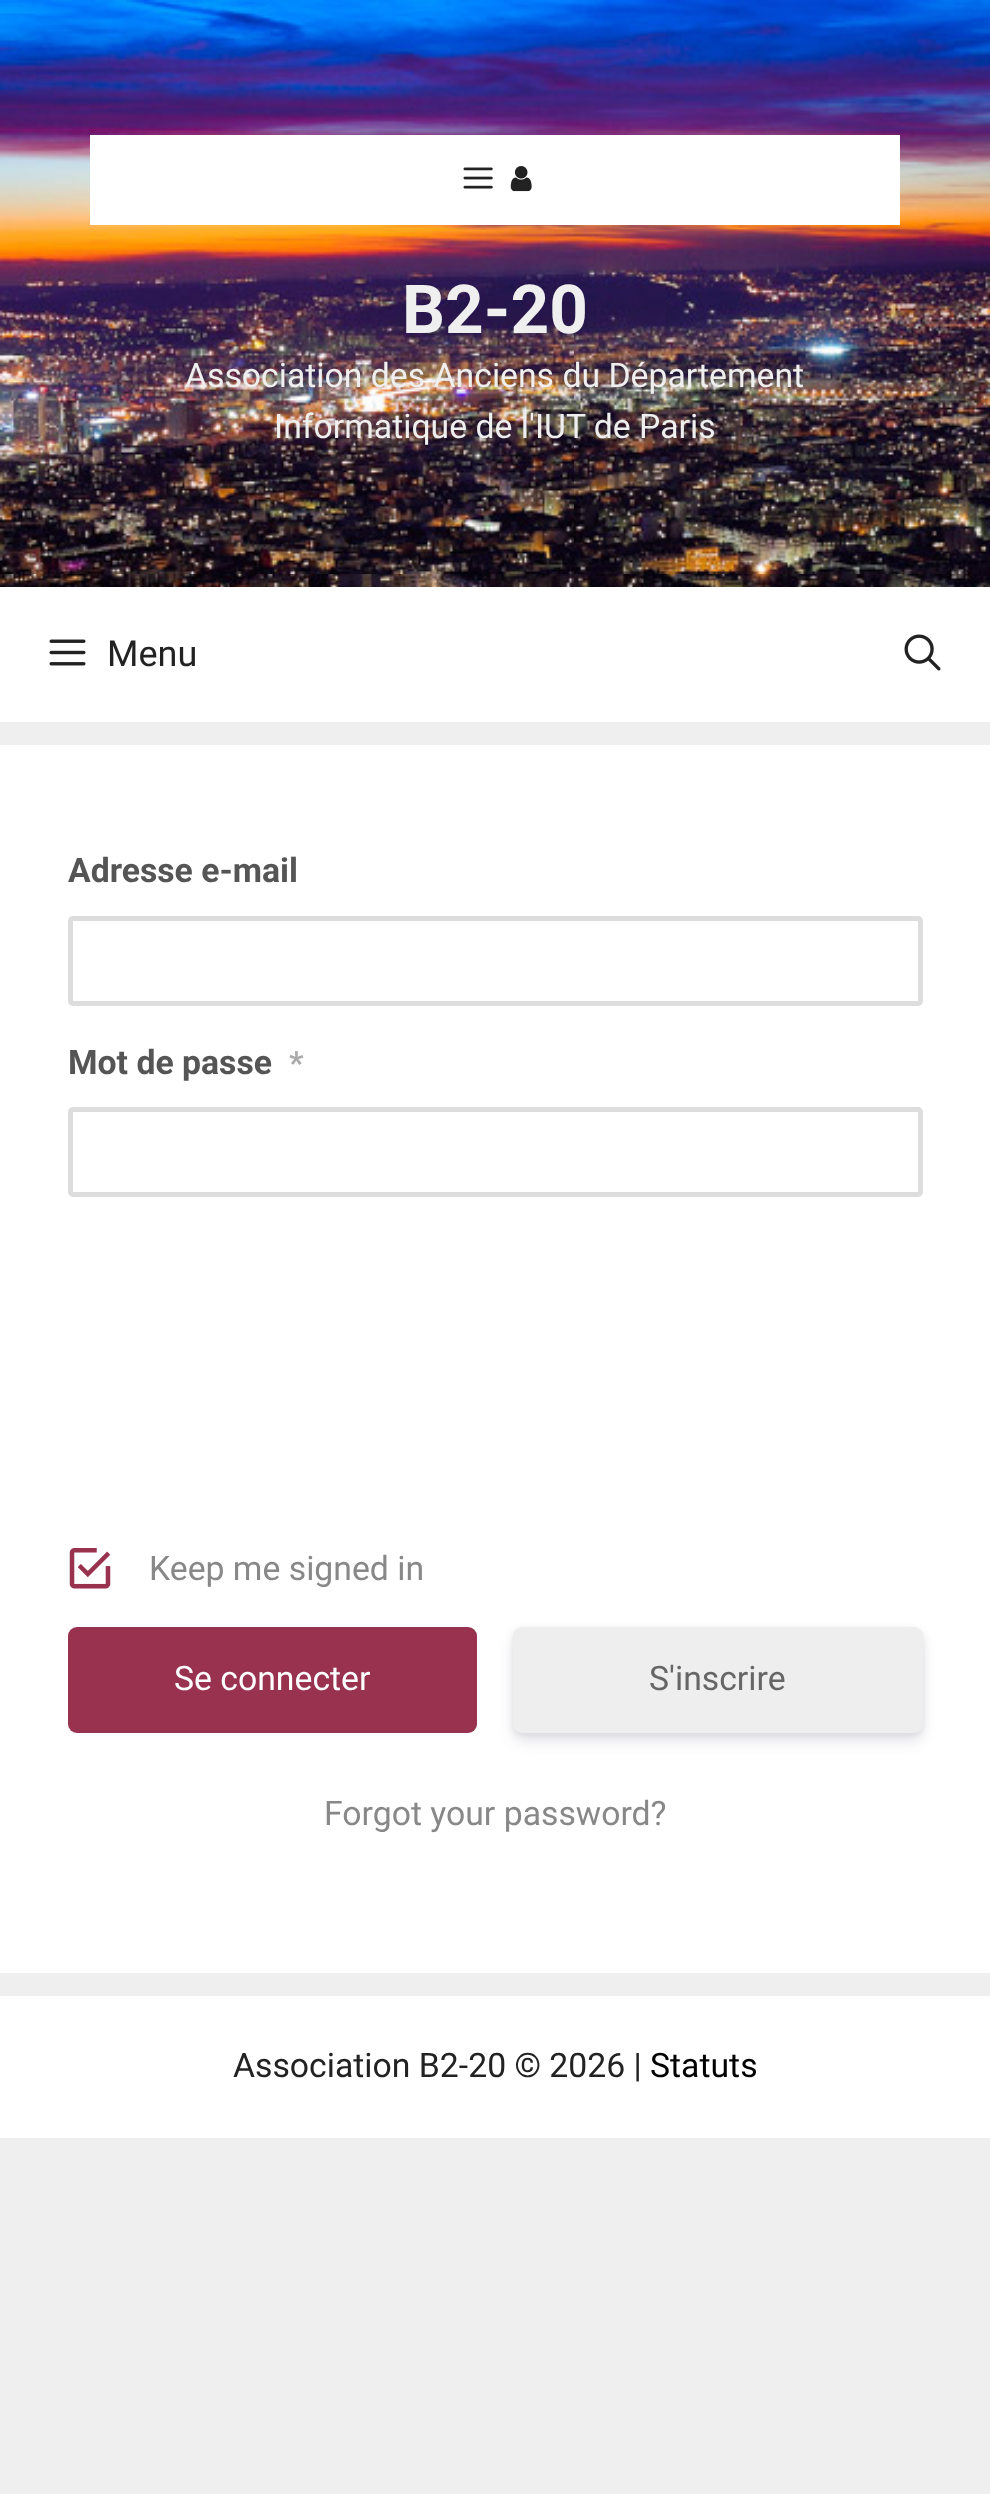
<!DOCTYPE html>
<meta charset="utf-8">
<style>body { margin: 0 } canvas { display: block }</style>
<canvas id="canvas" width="990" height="2494"></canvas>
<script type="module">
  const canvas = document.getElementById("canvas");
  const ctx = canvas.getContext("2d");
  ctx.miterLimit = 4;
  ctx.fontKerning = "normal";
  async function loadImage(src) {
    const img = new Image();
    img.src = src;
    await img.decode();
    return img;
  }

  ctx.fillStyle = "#efefef";
  ctx.fillRect(0, 0, 990, 2494);
  ctx.drawImage(await loadImage("img1.png"), 0, 0, 990, 587);
  ctx.fillStyle = "#ffffff";
  ctx.fillRect(90, 135, 810, 90);
  ctx.drawImage(await loadImage("img2.png"), 463, 167, 30, 22);
  ctx.drawImage(await loadImage("img3.png"), 510, 166, 22, 26);
  ctx.font = "bold 67.5px Roboto";
  ctx.fillStyle = "#efefef";
  ctx.fillText("B2-20", 402, 333);
  ctx.font = "33.75px Roboto";
  ctx.fillText("Association des Anciens du Département", 185, 387);
  ctx.fillText("Informatique de l'IUT de Paris", 274, 438);
  ctx.fillStyle = "#ffffff";
  ctx.fillRect(0, 587, 990, 135);
  ctx.drawImage(await loadImage("img4.png"), 49, 639, 37, 27);
  ctx.font = "36px Roboto";
  ctx.fillStyle = "#222222";
  ctx.fillText("Menu", 107, 666);
  ctx.drawImage(await loadImage("img5.png"), 904, 634, 37, 37);
  ctx.fillStyle = "#ffffff";
  ctx.fillRect(0, 745, 990, 1228);
  ctx.font = "bold 33.75px Roboto";
  ctx.fillStyle = "#555555";
  ctx.fillText("Adresse e-mail", 68, 882);
  ctx.beginPath();
  ctx.roundRect(70.5, 918.5, 850, 85, 2.5);
  ctx.strokeStyle = "#dddddd";
  ctx.lineWidth = 5;
  ctx.stroke();
  ctx.fillText("Mot de passe", 68, 1074);
  ctx.font = "bold 32px Roboto";
  ctx.fillStyle = "#aaaaaa";
  ctx.fillText("*", 289, 1074);
  ctx.beginPath();
  ctx.roundRect(70.5, 1109.5, 850, 85, 2.5);
  ctx.stroke();
  ctx.drawImage(await loadImage("img6.png"), 69, 1548, 42, 41);
  ctx.font = "33.75px Roboto";
  ctx.fillStyle = "#888888";
  ctx.fillText("Keep me signed in", 149, 1580);
  ctx.fillStyle = "#99324e";
  ctx.beginPath();
  ctx.roundRect(68, 1627, 409, 106, 9);
  ctx.fill();
  ctx.fillStyle = "#ffffff";
  ctx.fillText("Se connecter", 174, 1690);
  ctx.fillStyle = "rgba(0, 0, 0, 0.08)";
  ctx.filter = "blur(3.5px)";
  ctx.beginPath();
  ctx.roundRect(513, 1629, 410, 106, 9);
  ctx.fill();
  ctx.filter = "none";
  ctx.fillStyle = "rgba(50, 50, 93, 0.11)";
  ctx.filter = "blur(7px)";
  ctx.beginPath();
  ctx.roundRect(513, 1636, 410, 106, 9);
  ctx.fill();
  ctx.filter = "none";
  ctx.fillStyle = "#eeeeee";
  ctx.beginPath();
  ctx.roundRect(513, 1627, 410, 106, 9);
  ctx.fill();
  ctx.fillStyle = "#666666";
  ctx.fillText("S'inscrire", 649, 1690);
  ctx.fillStyle = "#888888";
  ctx.fillText("Forgot your password?", 324, 1825);
  ctx.fillStyle = "#ffffff";
  ctx.fillRect(0, 1996, 990, 142);
  ctx.fillStyle = "#222222";
  ctx.fillText("Association B2-20 © 2026 |", 233, 2077);
  ctx.fillStyle = "#000000";
  ctx.fillText("Statuts", 650, 2077);
</script>
